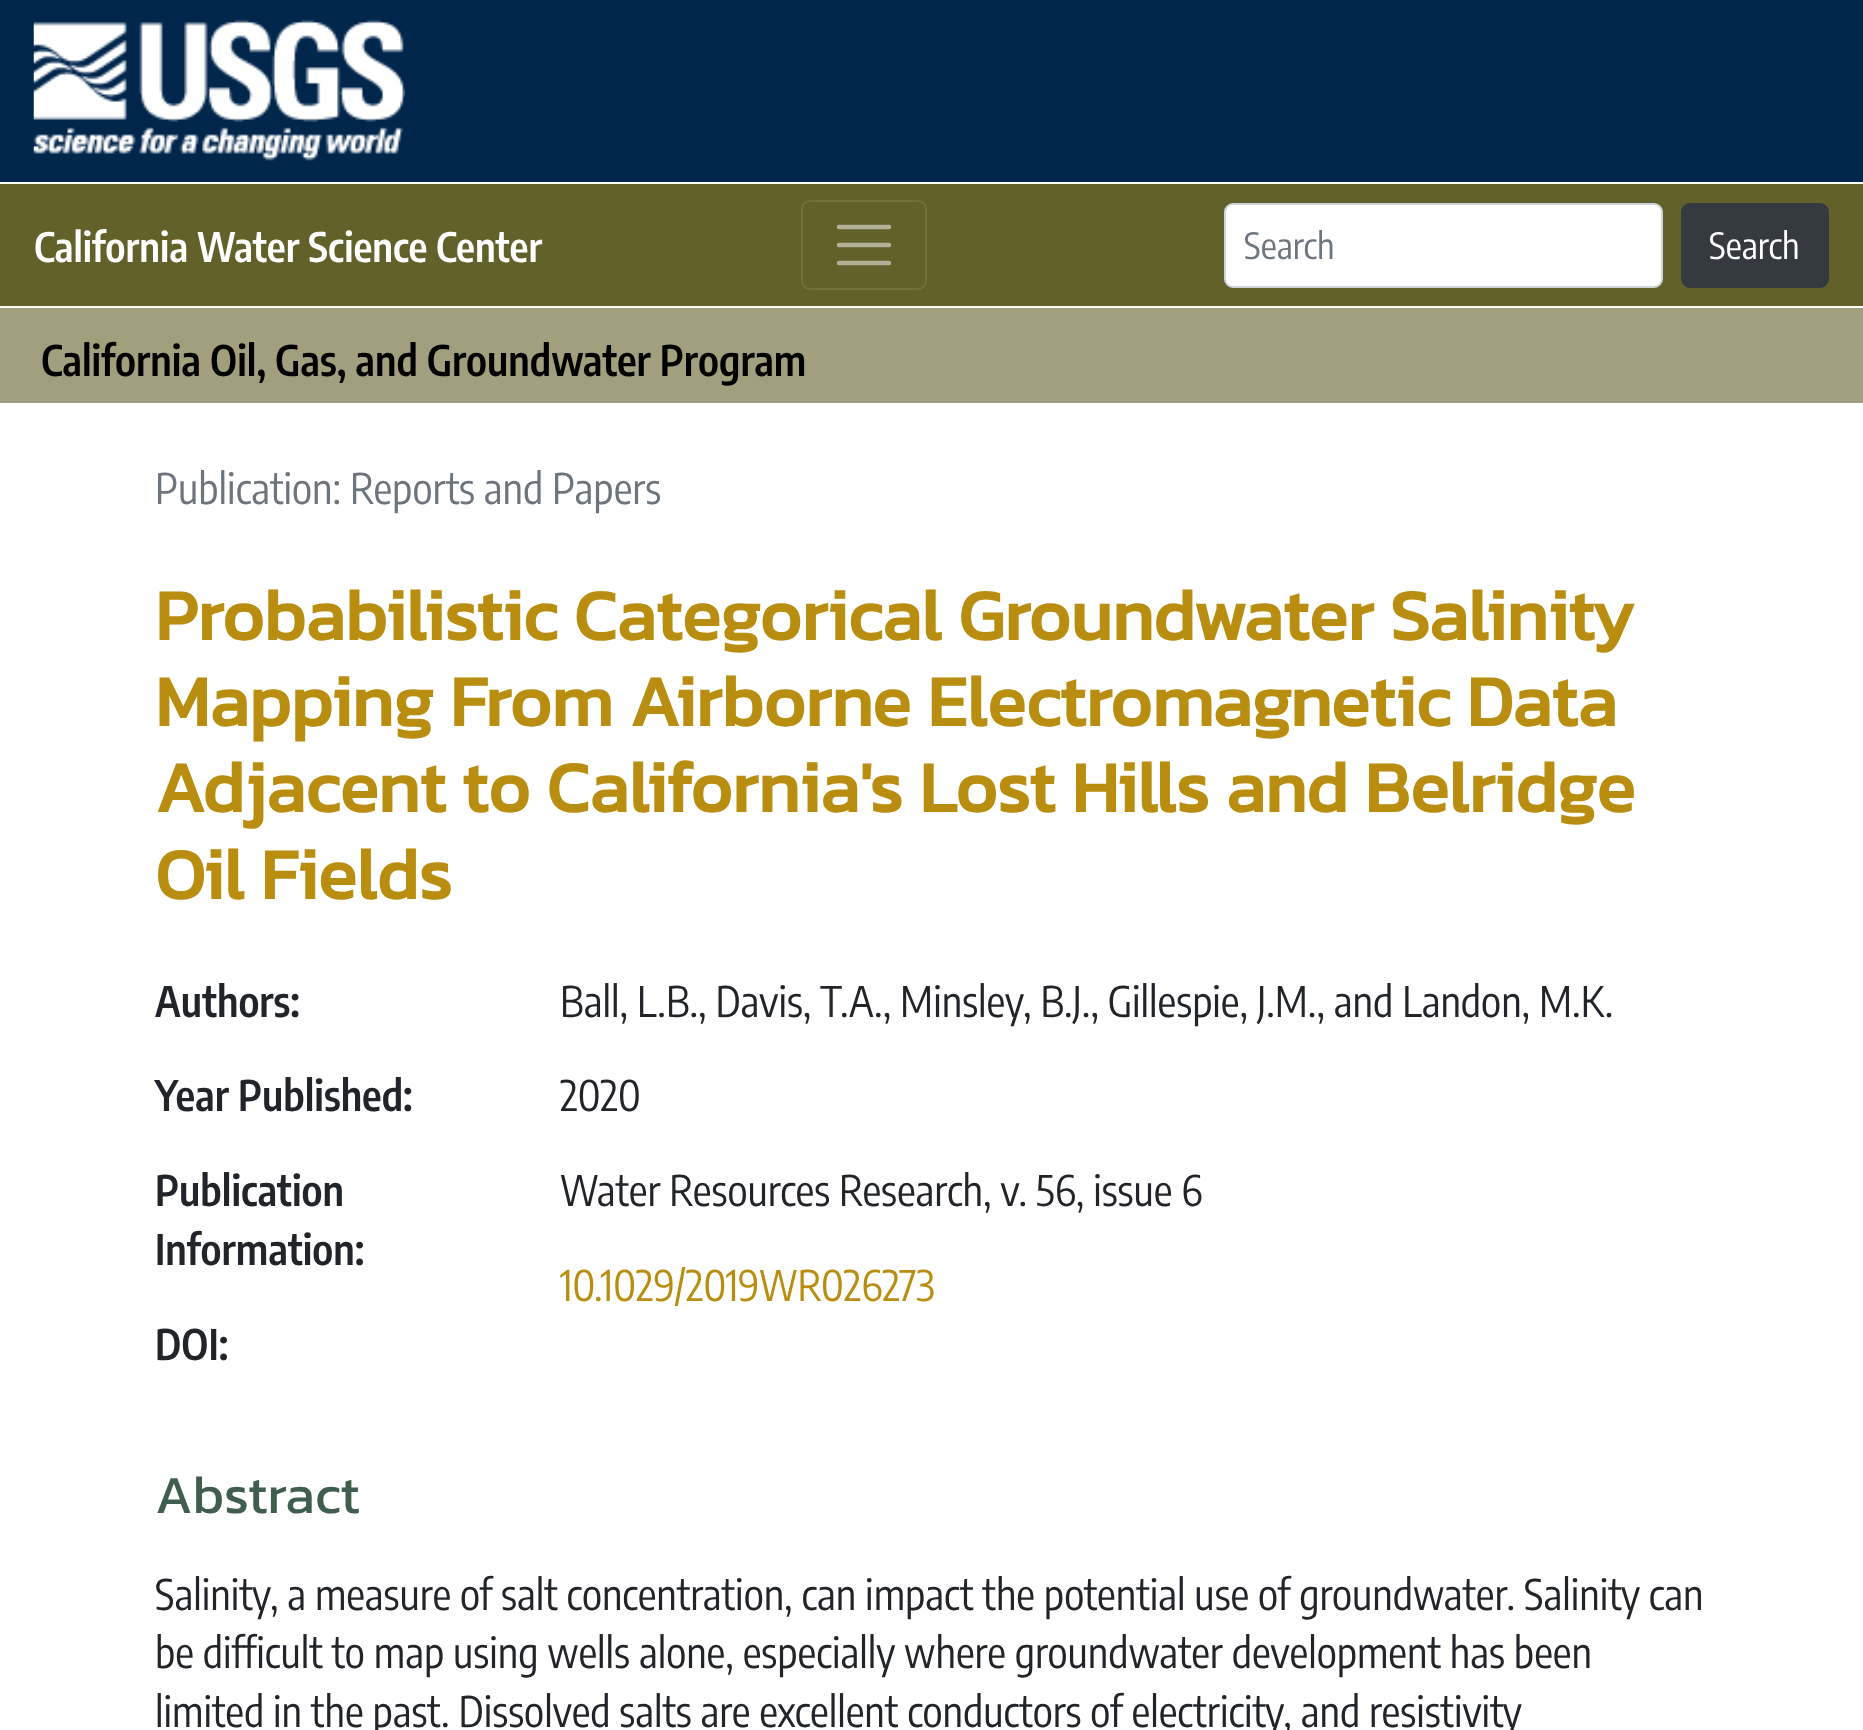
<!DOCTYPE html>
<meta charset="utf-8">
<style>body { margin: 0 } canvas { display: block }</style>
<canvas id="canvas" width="1863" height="1730"></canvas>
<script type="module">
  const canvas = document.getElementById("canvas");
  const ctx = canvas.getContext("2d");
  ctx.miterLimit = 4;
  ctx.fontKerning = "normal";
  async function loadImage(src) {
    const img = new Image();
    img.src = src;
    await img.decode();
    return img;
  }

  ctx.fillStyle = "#ffffff";
  ctx.fillRect(0, 0, 1863, 1730);
  ctx.fillStyle = "#00264c";
  ctx.fillRect(0, 0, 1863, 182);
  ctx.drawImage(await loadImage("img1.png"), 33, 19, 372, 142);
  ctx.fillStyle = "#626129";
  ctx.fillRect(0, 184, 1863, 122);
  ctx.font = "600 40.5px Encode Sans Condensed";
  ctx.fillStyle = "#ffffff";
  ctx.fillText("California Water Science Center", 34, 262);
  ctx.beginPath();
  ctx.roundRect(802, 201, 124, 88, 8);
  ctx.strokeStyle = "#72713e";
  ctx.lineWidth = 2;
  ctx.stroke();
  ctx.beginPath();
  ctx.moveTo(839, 227);
  ctx.lineTo(889, 227);
  ctx.moveTo(839, 245);
  ctx.lineTo(889, 245);
  ctx.moveTo(839, 263);
  ctx.lineTo(889, 263);
  ctx.strokeStyle = "#b1b094";
  ctx.lineWidth = 4.5;
  ctx.lineCap = "round";
  ctx.stroke();
  ctx.beginPath();
  ctx.roundRect(1225, 204, 437, 83, 8);
  ctx.fill();
  ctx.strokeStyle = "#ced4da";
  ctx.lineWidth = 2;
  ctx.stroke();
  ctx.font = "36px Encode Sans Condensed";
  ctx.fillStyle = "#6c757d";
  ctx.fillText("Search", 1244, 259);
  ctx.fillStyle = "#343a40";
  ctx.beginPath();
  ctx.roundRect(1682, 204, 146, 83, 8);
  ctx.fill();
  ctx.strokeStyle = "#343a40";
  ctx.stroke();
  ctx.fillStyle = "#ffffff";
  ctx.fillText("Search", 1709, 259);
  ctx.fillStyle = "#a29f7e";
  ctx.fillRect(0, 308, 1863, 95);
  ctx.font = "600 42px Encode Sans Condensed";
  ctx.fillStyle = "#000000";
  ctx.fillText("California Oil, Gas, and Groundwater Program", 41, 376);
  ctx.font = "42px Encode Sans Condensed";
  ctx.fillStyle = "#6c757d";
  ctx.fillText("Publication: Reports and Papers", 155, 504);
  ctx.font = "bold 72px Kanit";
  ctx.fillStyle = "#b98d10";
  ctx.fillText("Probabilistic Categorical Groundwater Salinity", 155, 640);
  ctx.fillText("Mapping From Airborne Electromagnetic Data", 155, 726);
  ctx.fillText("Adjacent to California's Lost Hills and Belridge", 155, 812);
  ctx.fillText("Oil Fields", 155, 899);
  ctx.font = "600 42px Encode Sans Condensed";
  ctx.fillStyle = "#212529";
  ctx.fillText("Authors:", 155, 1017);
  ctx.fillText("Year Published:", 155, 1111);
  ctx.fillText("Publication", 155, 1206);
  ctx.fillText("Information:", 155, 1265);
  ctx.fillText("DOI:", 155, 1360);
  ctx.font = "42px Encode Sans Condensed";
  ctx.fillText("Ball, L.B., Davis, T.A., Minsley, B.J., Gillespie, J.M., and Landon, M.K.", 560, 1017);
  ctx.fillText("2020", 560, 1111);
  ctx.fillText("Water Resources Research, v. 56, issue 6", 560, 1206);
  ctx.fillStyle = "#b98d10";
  ctx.fillText("10.1029/2019WR026273", 560, 1301);
  ctx.font = "54px Kanit";
  ctx.fillStyle = "#3f5e4e";
  ctx.fillText("Abstract", 155, 1513);
  ctx.font = "42px Encode Sans Condensed";
  ctx.fillStyle = "#212529";
  ctx.fillText("Salinity, a measure of salt concentration, can impact the potential use of groundwater. Salinity can", 155, 1610);
  ctx.fillText("be difficult to map using wells alone, especially where groundwater development has been", 155, 1668);
  ctx.fillText("limited in the past. Dissolved salts are excellent conductors of electricity, and resistivity", 155, 1727);
</script>
